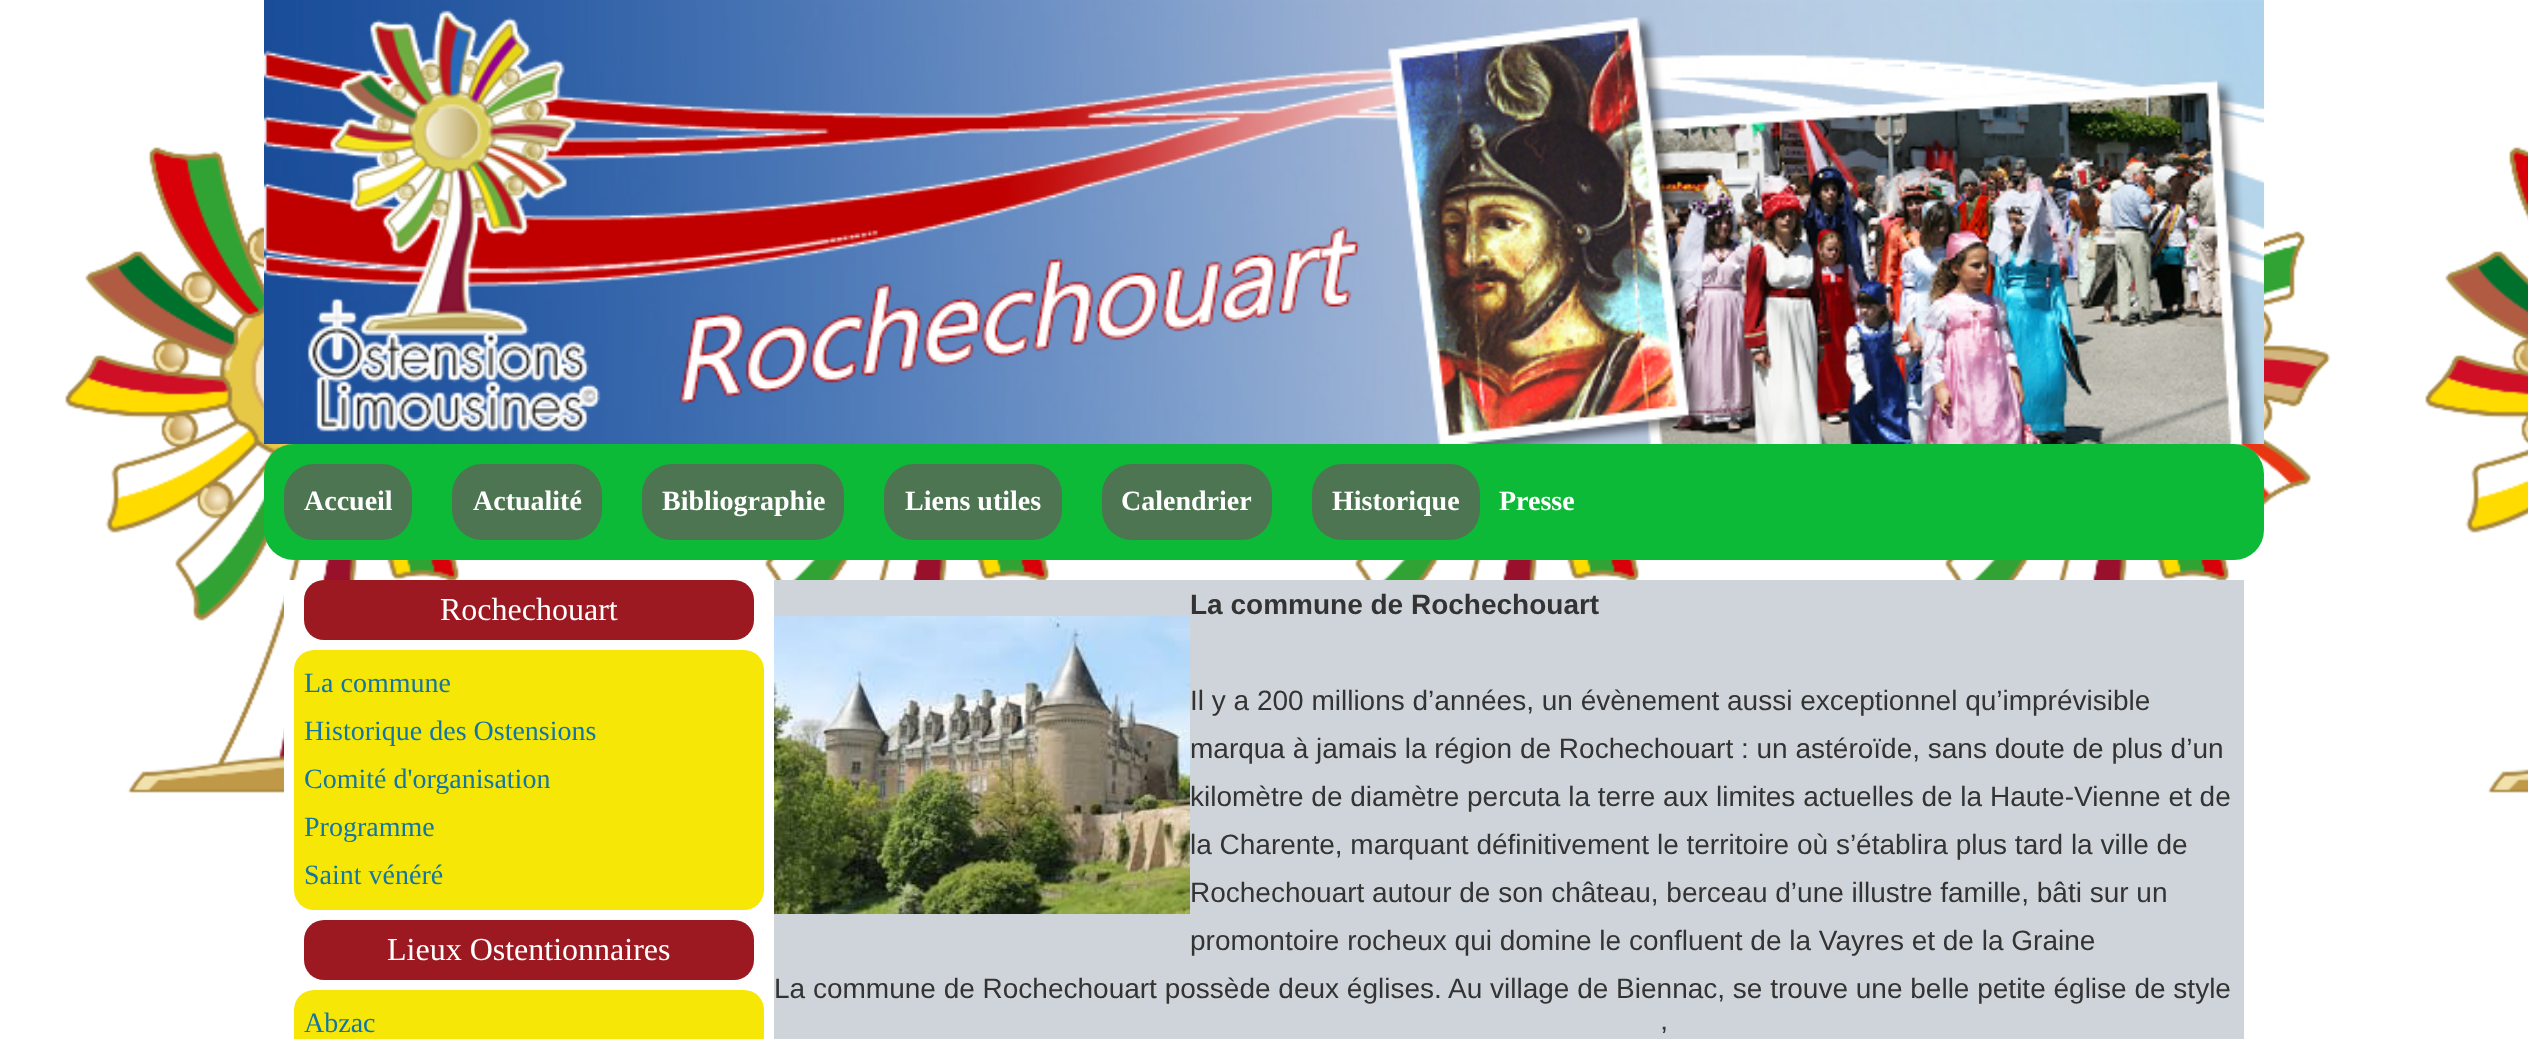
<!DOCTYPE html>
<meta charset="utf-8">
<style>body { margin: 0 } canvas { display: block }</style>
<canvas id="canvas" width="2528" height="1039"></canvas>
<script type="module">
  const canvas = document.getElementById("canvas");
  const ctx = canvas.getContext("2d");
  ctx.miterLimit = 4;
  ctx.fontKerning = "normal";
  async function loadImage(src) {
    const img = new Image();
    img.src = src;
    await img.decode();
    return img;
  }

  ctx.fillStyle = "#ffffff";
  ctx.fillRect(0, 0, 2528, 1039);
  ctx.drawImage(await loadImage("img1.png"), 65, 125, 2463, 668);
  ctx.drawImage(await loadImage("img2.png"), 264, 0, 2000, 444);
  ctx.fillStyle = "#0dba38";
  ctx.beginPath();
  ctx.roundRect(264, 444, 2000, 116, 30);
  ctx.fill();
  ctx.fillStyle = "#4d7551";
  ctx.beginPath();
  ctx.roundRect(284, 464, 128, 76, 30);
  ctx.fill();
  ctx.font = "bold 28px Liberation Serif";
  ctx.fillStyle = "#ffffff";
  ctx.fillText("Accueil", 304, 510);
  ctx.fillStyle = "#4d7551";
  ctx.beginPath();
  ctx.roundRect(452, 464, 150, 76, 30);
  ctx.fill();
  ctx.fillStyle = "#ffffff";
  ctx.fillText("Actualité", 473, 510);
  ctx.fillStyle = "#4d7551";
  ctx.beginPath();
  ctx.roundRect(642, 464, 202, 76, 30);
  ctx.fill();
  ctx.fillStyle = "#ffffff";
  ctx.fillText("Bibliographie", 662, 510);
  ctx.fillStyle = "#4d7551";
  ctx.beginPath();
  ctx.roundRect(884, 464, 178, 76, 30);
  ctx.fill();
  ctx.fillStyle = "#ffffff";
  ctx.fillText("Liens utiles", 905, 510);
  ctx.fillStyle = "#4d7551";
  ctx.beginPath();
  ctx.roundRect(1102, 464, 170, 76, 30);
  ctx.fill();
  ctx.fillStyle = "#ffffff";
  ctx.fillText("Calendrier", 1121, 510);
  ctx.fillStyle = "#4d7551";
  ctx.beginPath();
  ctx.roundRect(1312, 464, 168, 76, 30);
  ctx.fill();
  ctx.fillStyle = "#ffffff";
  ctx.fillText("Historique", 1332, 510);
  ctx.fillText("Presse", 1499, 510);
  ctx.fillRect(284, 580, 490, 213);
  ctx.fillStyle = "#9c1922";
  ctx.beginPath();
  ctx.roundRect(304, 580, 450, 60, 20);
  ctx.fill();
  ctx.font = "32px Liberation Serif";
  ctx.fillStyle = "#ffffff";
  ctx.fillText("Rochechouart", 440, 620);
  ctx.fillStyle = "#f7e707";
  ctx.beginPath();
  ctx.roundRect(294, 650, 470, 260, 20);
  ctx.fill();
  ctx.font = "28px Liberation Serif";
  ctx.fillStyle = "#1176a6";
  ctx.fillText("La commune", 304, 692);
  ctx.fillText("Historique des Ostensions", 304, 740);
  ctx.fillText("Comité d'organisation", 304, 788);
  ctx.fillText("Programme", 304, 836);
  ctx.fillText("Saint vénéré", 304, 884);
  ctx.fillStyle = "#9c1922";
  ctx.beginPath();
  ctx.roundRect(304, 920, 450, 60, 20);
  ctx.fill();
  ctx.font = "32px Liberation Serif";
  ctx.fillStyle = "#ffffff";
  ctx.fillText("Lieux Ostentionnaires", 387, 960);
  ctx.fillStyle = "#f7e707";
  ctx.beginPath();
  ctx.roundRect(294, 990, 470, 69, 20);
  ctx.fill();
  ctx.font = "28px Liberation Serif";
  ctx.fillStyle = "#1176a6";
  ctx.fillText("Abzac", 304, 1032);
  ctx.fillStyle = "#ced4d9";
  ctx.fillRect(774, 580, 1470, 459);
  ctx.drawImage(await loadImage("img3.png"), 774, 616, 416, 298);
  ctx.font = "bold 28px Liberation Sans";
  ctx.fillStyle = "#333333";
  ctx.fillText("La commune de Rochechouart", 1190, 614);
  ctx.font = "28px Liberation Sans";
  ctx.fillText("Il y a 200 millions d’années, un évènement aussi exceptionnel qu’imprévisible", 1190, 710);
  ctx.fillText("marqua à jamais la région de Rochechouart : un astéroïde, sans doute de plus d’un", 1190, 758);
  ctx.fillText("kilomètre de diamètre percuta la terre aux limites actuelles de la Haute-Vienne et de", 1190, 806);
  ctx.fillText("la Charente, marquant définitivement le territoire où s’établira plus tard la ville de", 1190, 854);
  ctx.fillText("Rochechouart autour de son château, berceau d’une illustre famille, bâti sur un", 1190, 902);
  ctx.fillText("promontoire rocheux qui domine le confluent de la Vayres et de la Graine", 1190, 950);
  ctx.fillText("La commune de Rochechouart possède deux églises. Au village de Biennac, se trouve une belle petite église de style", 774, 998);
  ctx.fillText("’", 1661, 1046);
</script>
